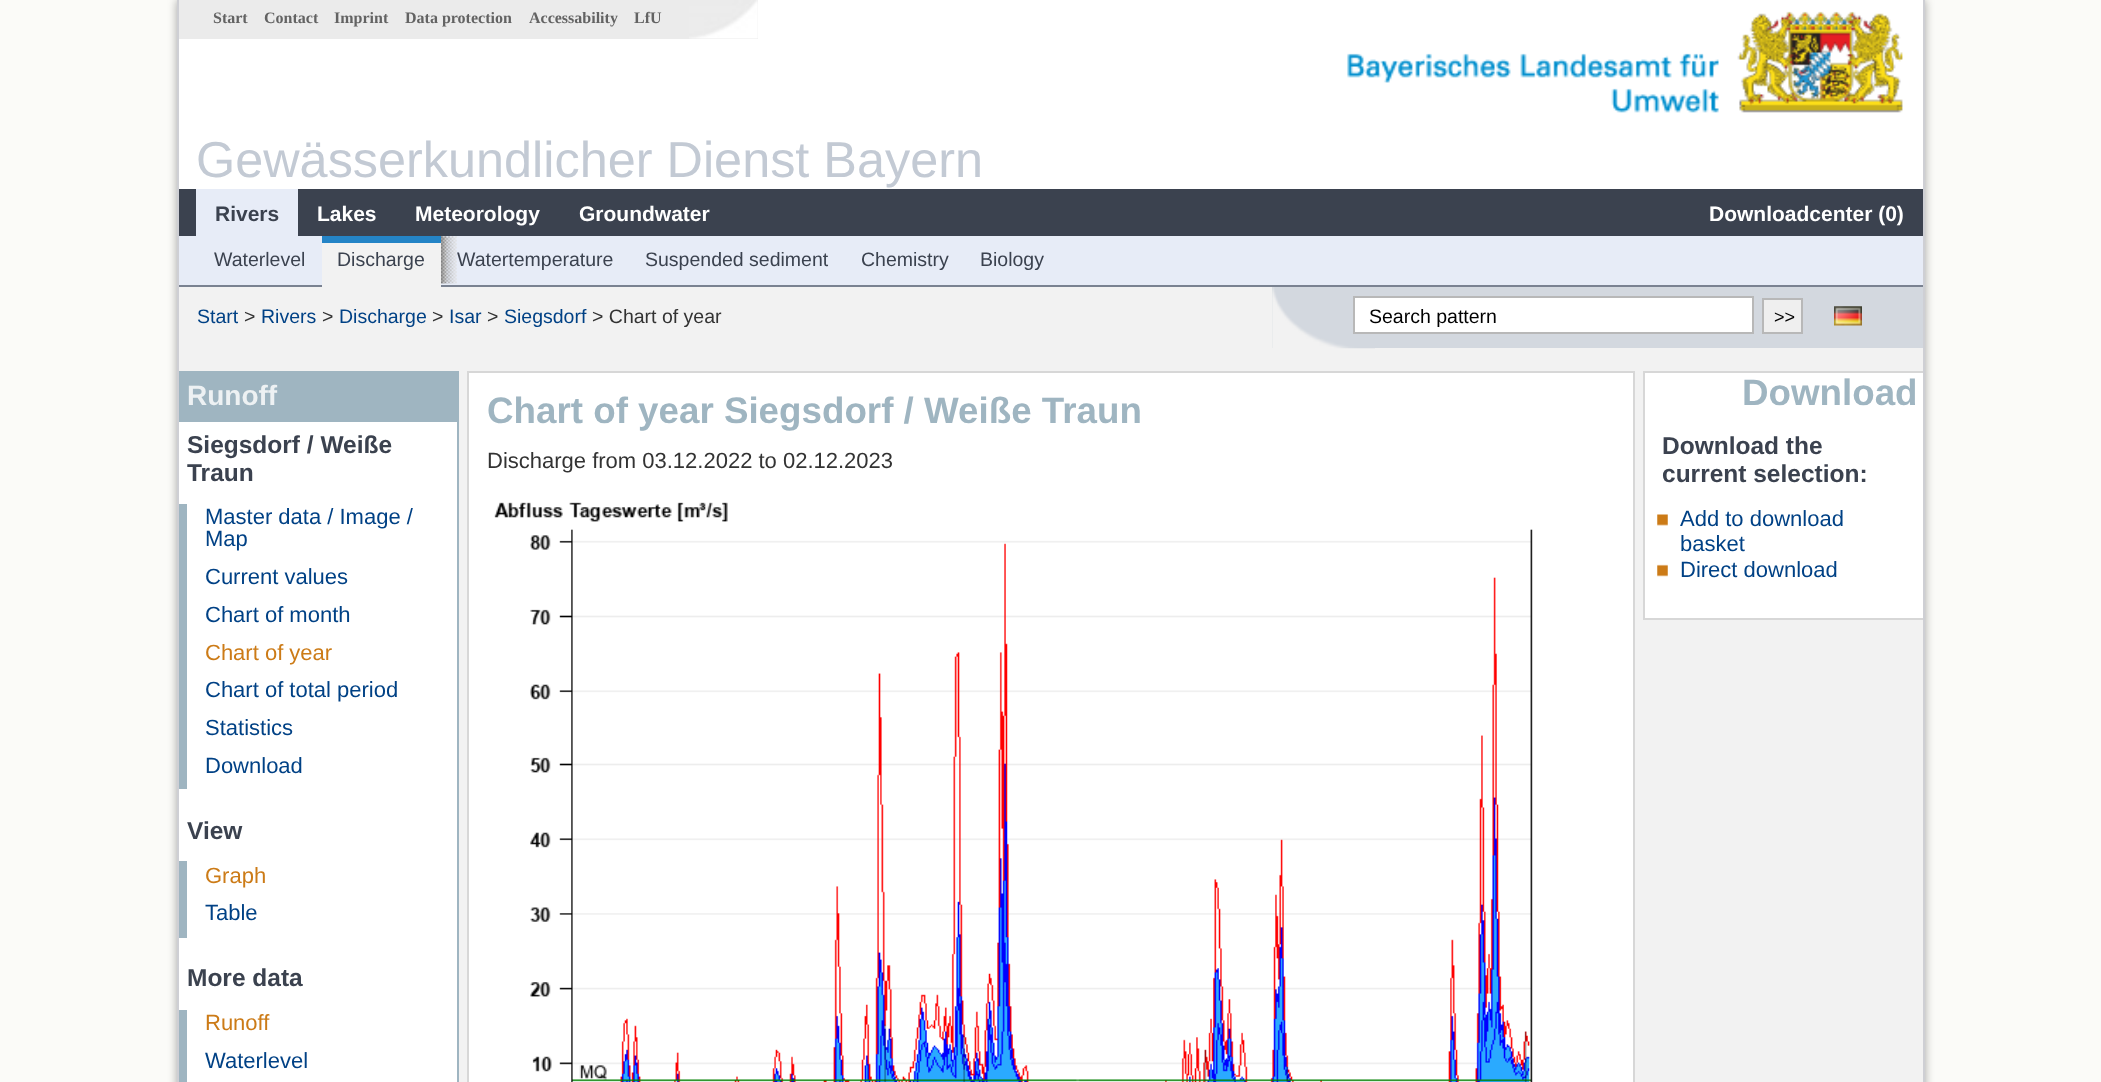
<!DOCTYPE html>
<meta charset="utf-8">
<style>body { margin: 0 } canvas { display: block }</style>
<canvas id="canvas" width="2101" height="1082"></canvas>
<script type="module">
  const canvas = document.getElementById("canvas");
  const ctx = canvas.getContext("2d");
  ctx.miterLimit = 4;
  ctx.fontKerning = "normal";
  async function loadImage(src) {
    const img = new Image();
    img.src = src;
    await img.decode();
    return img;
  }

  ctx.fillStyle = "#fbfbf8";
  ctx.fillRect(0, 0, 2101, 1082);
  ctx.fillStyle = "rgba(0, 0, 0, 0.35)";
  ctx.filter = "blur(5px)";
  ctx.beginPath();
  ctx.rect(177, 0, 1748, 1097);
  ctx.fill();
  ctx.filter = "none";
  ctx.fillStyle = "#ffffff";
  ctx.fillRect(179, 0, 1744, 189);
  ctx.fillStyle = "#cecfd4";
  ctx.fillRect(1923, 0, 2, 1082);
  ctx.fillRect(177, 0, 2, 1082);
  ctx.fillStyle = "#ebebeb";
  ctx.fillRect(179, 0, 579, 39);
  ctx.drawImage(await loadImage("img1.png"), 689, 0, 69, 39);
  ctx.font = "bold 16px Liberation Serif";
  ctx.fillStyle = "#636363";
  ctx.fillText("Start", 213, 23);
  ctx.fillText("Contact", 264, 23);
  ctx.fillText("Imprint", 334, 23);
  ctx.fillText("Data protection", 405, 23);
  ctx.fillText("Accessability", 529, 23);
  ctx.fillText("LfU", 634, 23);
  ctx.drawImage(await loadImage("img2.png"), 1347, 11, 556, 102);
  ctx.font = "50.4px Liberation Sans";
  ctx.fillStyle = "#c3cad4";
  ctx.fillText("Gewässerkundlicher Dienst Bayern", 196, 177);
  ctx.fillStyle = "#3b424f";
  ctx.fillRect(179, 189, 1744, 47);
  ctx.fillStyle = "#e7ecf7";
  ctx.fillRect(196, 189, 102, 47);
  ctx.font = "bold 21px Liberation Sans";
  ctx.fillStyle = "#3b424f";
  ctx.fillText("Rivers", 215, 221);
  ctx.fillStyle = "#ffffff";
  ctx.fillText("Lakes", 317, 221);
  ctx.fillText("Meteorology", 415, 221);
  ctx.fillText("Groundwater", 579, 221);
  ctx.fillText("Downloadcenter (0)", 1709, 221);
  ctx.fillStyle = "#e7ecf7";
  ctx.fillRect(179, 236, 1744, 49);
  ctx.fillStyle = "#7a8291";
  ctx.fillRect(179, 285, 1744, 2);
  ctx.font = "19.5px Liberation Sans";
  ctx.fillStyle = "#3b424f";
  ctx.fillText("Waterlevel", 214, 266);
  ctx.fillStyle = "#f2f2f2";
  ctx.fillRect(322, 243, 119, 44);
  ctx.fillStyle = "#2484c6";
  ctx.fillRect(322, 236, 119, 7);
  ctx.fillStyle = "#3b424f";
  ctx.fillText("Discharge", 337, 266);
  ctx.drawImage(await loadImage("img3.png"), 441, 236, 16, 48);
  ctx.fillText("Watertemperature", 457, 266);
  ctx.fillText("Suspended sediment", 645, 266);
  ctx.fillText("Chemistry", 861, 266);
  ctx.fillText("Biology", 980, 266);
  ctx.fillStyle = "#f2f2f2";
  ctx.fillRect(179, 287, 1744, 795);
  ctx.fillStyle = "#004185";
  ctx.fillText("Start", 197, 323);
  ctx.fillStyle = "#333333";
  ctx.fillText(">", 244, 323);
  ctx.fillStyle = "#004185";
  ctx.fillText("Rivers", 261, 323);
  ctx.fillStyle = "#333333";
  ctx.fillText(">", 322, 323);
  ctx.fillStyle = "#004185";
  ctx.fillText("Discharge", 339, 323);
  ctx.fillStyle = "#333333";
  ctx.fillText(">", 432, 323);
  ctx.fillStyle = "#004185";
  ctx.fillText("Isar", 449, 323);
  ctx.fillStyle = "#333333";
  ctx.fillText(">", 487, 323);
  ctx.fillStyle = "#004185";
  ctx.fillText("Siegsdorf", 504, 323);
  ctx.fillStyle = "#333333";
  ctx.fillText("> Chart of year", 592, 323);
  ctx.fillStyle = "#d3d8df";
  ctx.fillRect(1272, 287, 651, 61);
  ctx.drawImage(await loadImage("img4.png"), 1272, 287, 103, 62);
  ctx.fillStyle = "#ffffff";
  ctx.beginPath();
  ctx.rect(1354, 297, 399, 36);
  ctx.fill();
  ctx.strokeStyle = "#b8b8b8";
  ctx.lineWidth = 2;
  ctx.stroke();
  ctx.fillStyle = "#000000";
  ctx.fillText("Search pattern", 1369, 323);
  ctx.fillStyle = "#efefef";
  ctx.beginPath();
  ctx.rect(1763, 299, 39, 34);
  ctx.fill();
  ctx.stroke();
  ctx.font = "18px Liberation Sans";
  ctx.fillStyle = "#000000";
  ctx.fillText(">>", 1774, 323);
  ctx.drawImage(await loadImage("img5.png"), 1834, 306, 28, 20);
  ctx.fillStyle = "#ffffff";
  ctx.fillRect(179, 422, 278, 660);
  ctx.fillStyle = "#9fb5c1";
  ctx.fillRect(179, 371, 280, 2);
  ctx.fillRect(457, 371, 2, 711);
  ctx.fillRect(179, 373, 278, 49);
  ctx.font = "bold 28px Liberation Sans";
  ctx.fillStyle = "#edf1f3";
  ctx.fillText("Runoff", 187, 405);
  ctx.font = "bold 24.5px Liberation Sans";
  ctx.fillStyle = "#3b424f";
  ctx.fillText("Siegsdorf / Weiße", 187, 453);
  ctx.fillText("Traun", 187, 481);
  ctx.fillStyle = "#9fb5c1";
  ctx.fillRect(179, 504, 8, 285);
  ctx.font = "22px Liberation Sans";
  ctx.fillStyle = "#004185";
  ctx.fillText("Master data / Image /", 205, 524);
  ctx.fillText("Map", 205, 546);
  ctx.fillText("Current values", 205, 584);
  ctx.fillText("Chart of month", 205, 622);
  ctx.fillStyle = "#cc7b17";
  ctx.fillText("Chart of year", 205, 660);
  ctx.fillStyle = "#004185";
  ctx.fillText("Chart of total period", 205, 697);
  ctx.fillText("Statistics", 205, 735);
  ctx.fillText("Download", 205, 773);
  ctx.font = "bold 24.5px Liberation Sans";
  ctx.fillStyle = "#3b424f";
  ctx.fillText("View", 187, 839);
  ctx.fillStyle = "#9fb5c1";
  ctx.fillRect(179, 861, 8, 77);
  ctx.font = "22px Liberation Sans";
  ctx.fillStyle = "#cc7b17";
  ctx.fillText("Graph", 205, 883);
  ctx.fillStyle = "#004185";
  ctx.fillText("Table", 205, 920);
  ctx.font = "bold 24.5px Liberation Sans";
  ctx.fillStyle = "#3b424f";
  ctx.fillText("More data", 187, 986);
  ctx.fillStyle = "#9fb5c1";
  ctx.fillRect(179, 1010, 8, 72);
  ctx.font = "22px Liberation Sans";
  ctx.fillStyle = "#cc7b17";
  ctx.fillText("Runoff", 205, 1030);
  ctx.fillStyle = "#004185";
  ctx.fillText("Waterlevel", 205, 1068);
  ctx.fillStyle = "#ffffff";
  ctx.beginPath();
  ctx.rect(468, 372, 1166, 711);
  ctx.fill();
  ctx.strokeStyle = "#d7d7d7";
  ctx.stroke();
  ctx.font = "bold 36.75px Liberation Sans";
  ctx.fillStyle = "#9fb5c1";
  ctx.fillText("Chart of year Siegsdorf / Weiße Traun", 487, 423);
  ctx.font = "22px Liberation Sans";
  ctx.fillStyle = "#333333";
  ctx.fillText("Discharge from 03.12.2022 to 02.12.2023", 487, 468);
  ctx.drawImage(await loadImage("img6.png"), 494, 502, 1039, 580);
  ctx.fillStyle = "#ffffff";
  ctx.fillRect(1645, 373, 278, 245);
  ctx.fillStyle = "#d7d7d7";
  ctx.fillRect(1643, 371, 280, 2);
  ctx.fillRect(1643, 618, 280, 2);
  ctx.fillRect(1643, 371, 2, 249);
  ctx.font = "bold 36.75px Liberation Sans";
  ctx.fillStyle = "#9fb5c1";
  ctx.fillText("Download", 1742, 405);
  ctx.font = "bold 24.5px Liberation Sans";
  ctx.fillStyle = "#3b424f";
  ctx.fillText("Download the", 1662, 454);
  ctx.fillText("current selection:", 1662, 482);
  ctx.drawImage(await loadImage("img7.png"), 1657, 514, 11, 12);
  ctx.font = "22px Liberation Sans";
  ctx.fillStyle = "#004185";
  ctx.fillText("Add to download", 1680, 526);
  ctx.fillText("basket", 1680, 551);
  ctx.drawImage(await loadImage("img8.png"), 1657, 564, 11, 13);
  ctx.fillText("Direct download", 1680, 577);
</script>
